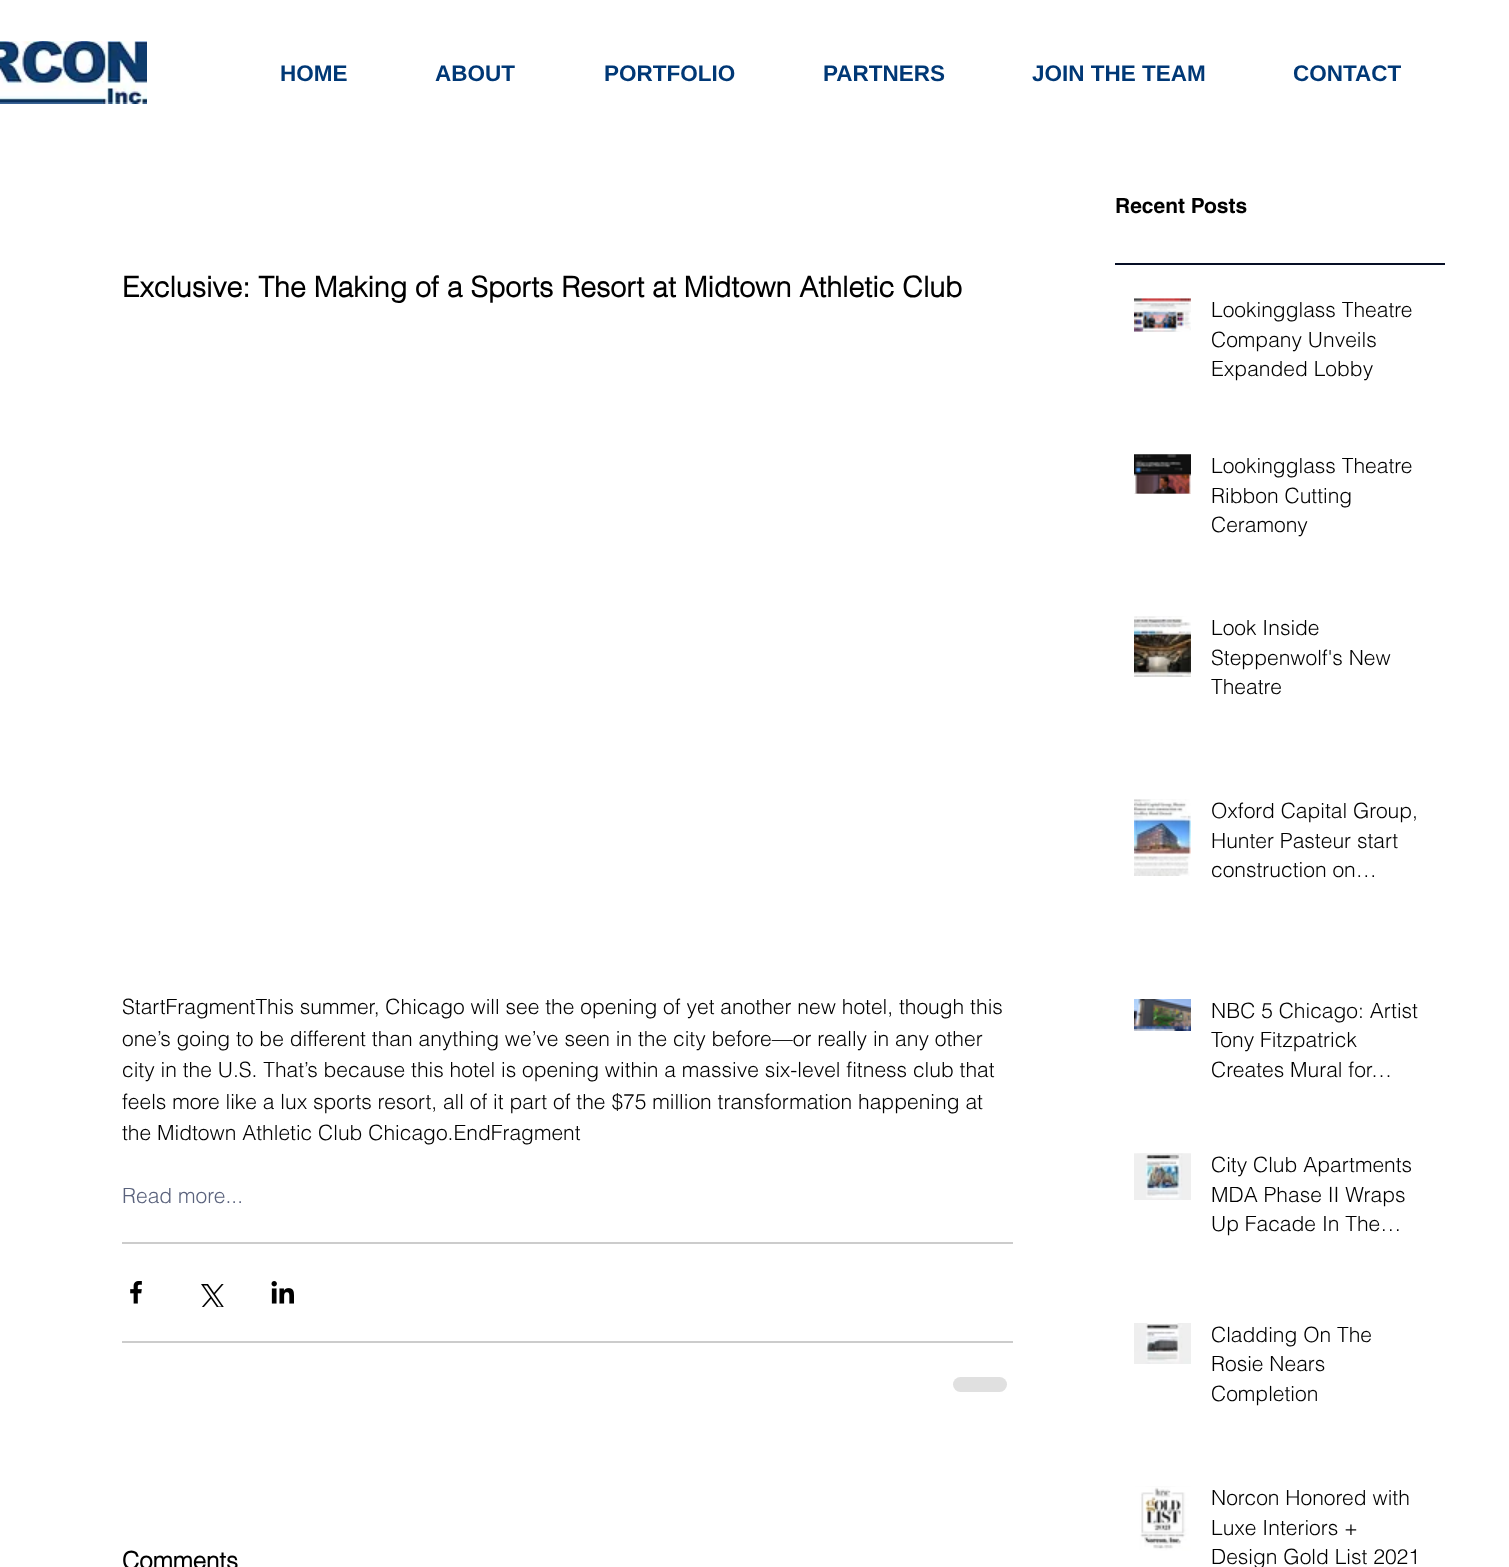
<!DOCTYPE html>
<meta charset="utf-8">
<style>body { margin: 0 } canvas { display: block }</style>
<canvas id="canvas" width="1509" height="1567"></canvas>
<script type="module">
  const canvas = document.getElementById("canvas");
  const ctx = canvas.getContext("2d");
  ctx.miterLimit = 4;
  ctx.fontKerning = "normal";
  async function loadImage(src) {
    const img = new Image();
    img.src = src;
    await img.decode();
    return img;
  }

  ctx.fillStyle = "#ffffff";
  ctx.fillRect(0, 0, 1509, 1567);
  ctx.drawImage(await loadImage("img1.png"), 0, 41, 147, 63);
  ctx.font = "bold 22.5px Liberation Sans";
  ctx.fillStyle = "#003876";
  ctx.fillText("HOME", 280, 81);
  ctx.fillText("ABOUT", 435, 81);
  ctx.fillText("PORTFOLIO", 604, 81);
  ctx.fillText("PARTNERS", 823, 81);
  ctx.fillText("JOIN THE TEAM", 1032, 81);
  ctx.fillText("CONTACT", 1293, 81);
  ctx.font = "bold 28.5px helvetica";
  ctx.fillStyle = "#000000";
  ctx.fillText("Exclusive: The Making of a Sports Resort at Midtown Athletic Club", 122, 297);
  ctx.font = "300 21px helvetica";
  ctx.fillText("StartFragmentThis summer, Chicago will see the opening of yet another new hotel, though this", 122, 1014);
  ctx.fillText("one’s going to be different than anything we’ve seen in the city before—or really in any other", 122, 1046);
  ctx.fillText("city in the U.S. That’s because this hotel is opening within a massive six-level fitness club that", 122, 1077);
  ctx.fillText("feels more like a lux sports resort, all of it part of the $75 million transformation happening at", 122, 1109);
  ctx.fillText("the Midtown Athletic Club Chicago.EndFragment", 122, 1140);
  ctx.fillStyle = "#5a627c";
  ctx.fillText("Read more...", 122, 1203);
  ctx.fillStyle = "#cccccc";
  ctx.fillRect(122, 1242, 891, 2);
  ctx.drawImage(await loadImage("img2.png"), 130, 1281, 12, 23);
  ctx.drawImage(await loadImage("img3.png"), 201, 1284, 23, 23);
  ctx.drawImage(await loadImage("img4.png"), 271, 1281, 23, 23);
  ctx.fillRect(122, 1341, 891, 2);
  ctx.fillStyle = "#e0e0e0";
  ctx.beginPath();
  ctx.roundRect(953, 1377, 54, 15, 7.5);
  ctx.fill();
  ctx.font = "bold 24px helvetica";
  ctx.fillStyle = "#000000";
  ctx.fillText("Comments", 122, 1569);
  ctx.font = "bold 21px 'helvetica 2'";
  ctx.fillText("Recent Posts", 1115, 213);
  ctx.fillStyle = "#060e25";
  ctx.fillRect(1115, 263, 330, 2);
  ctx.drawImage(await loadImage("img5.png"), 1134, 298, 57, 34);
  ctx.drawImage(await loadImage("img6.png"), 1134, 298, 57, 34);
  ctx.font = "300 21px helvetica";
  ctx.fillStyle = "#000000";
  ctx.fillText("Lookingglass Theatre", 1211, 317);
  ctx.fillText("Company Unveils", 1211, 347);
  ctx.fillText("Expanded Lobby", 1211, 376);
  ctx.drawImage(await loadImage("img7.png"), 1134, 454, 57, 40);
  ctx.drawImage(await loadImage("img8.png"), 1134, 454, 57, 40);
  ctx.fillText("Lookingglass Theatre", 1211, 473);
  ctx.fillText("Ribbon Cutting", 1211, 503);
  ctx.fillText("Ceramony", 1211, 532);
  ctx.drawImage(await loadImage("img9.png"), 1134, 616, 57, 61);
  ctx.drawImage(await loadImage("img10.png"), 1134, 616, 57, 61);
  ctx.fillText("Look Inside", 1211, 635);
  ctx.fillText("Steppenwolf's New", 1211, 665);
  ctx.fillText("Theatre", 1211, 694);
  ctx.drawImage(await loadImage("img11.png"), 1134, 799, 57, 1);
  ctx.drawImage(await loadImage("img12.png"), 1134, 799, 57, 77);
  ctx.fillText("Oxford Capital Group,", 1211, 818);
  ctx.fillText("Hunter Pasteur start", 1211, 848);
  ctx.fillText("construction on…", 1211, 877);
  ctx.drawImage(await loadImage("img13.png"), 1134, 999, 57, 32);
  ctx.fillText("NBC 5 Chicago: Artist", 1211, 1018);
  ctx.fillText("Tony Fitzpatrick", 1211, 1047);
  ctx.fillText("Creates Mural for…", 1211, 1077);
  ctx.drawImage(await loadImage("img14.png"), 1134, 1153, 57, 1);
  ctx.drawImage(await loadImage("img15.png"), 1134, 1153, 57, 47);
  ctx.fillText("City Club Apartments", 1211, 1172);
  ctx.fillText("MDA Phase II Wraps", 1211, 1202);
  ctx.fillText("Up Facade In The…", 1211, 1231);
  ctx.drawImage(await loadImage("img16.png"), 1134, 1323, 57, 41);
  ctx.fillText("Cladding On The", 1211, 1342);
  ctx.fillText("Rosie Nears", 1211, 1371);
  ctx.fillText("Completion", 1211, 1401);
  ctx.drawImage(await loadImage("img17.png"), 1135, 1486, 56, 1);
  ctx.drawImage(await loadImage("img18.png"), 1135, 1487, 56, 64);
  ctx.fillText("Norcon Honored with", 1211, 1505);
  ctx.fillText("Luxe Interiors +", 1211, 1535);
  ctx.fillText("Design Gold List 2021", 1211, 1564);
</script>
